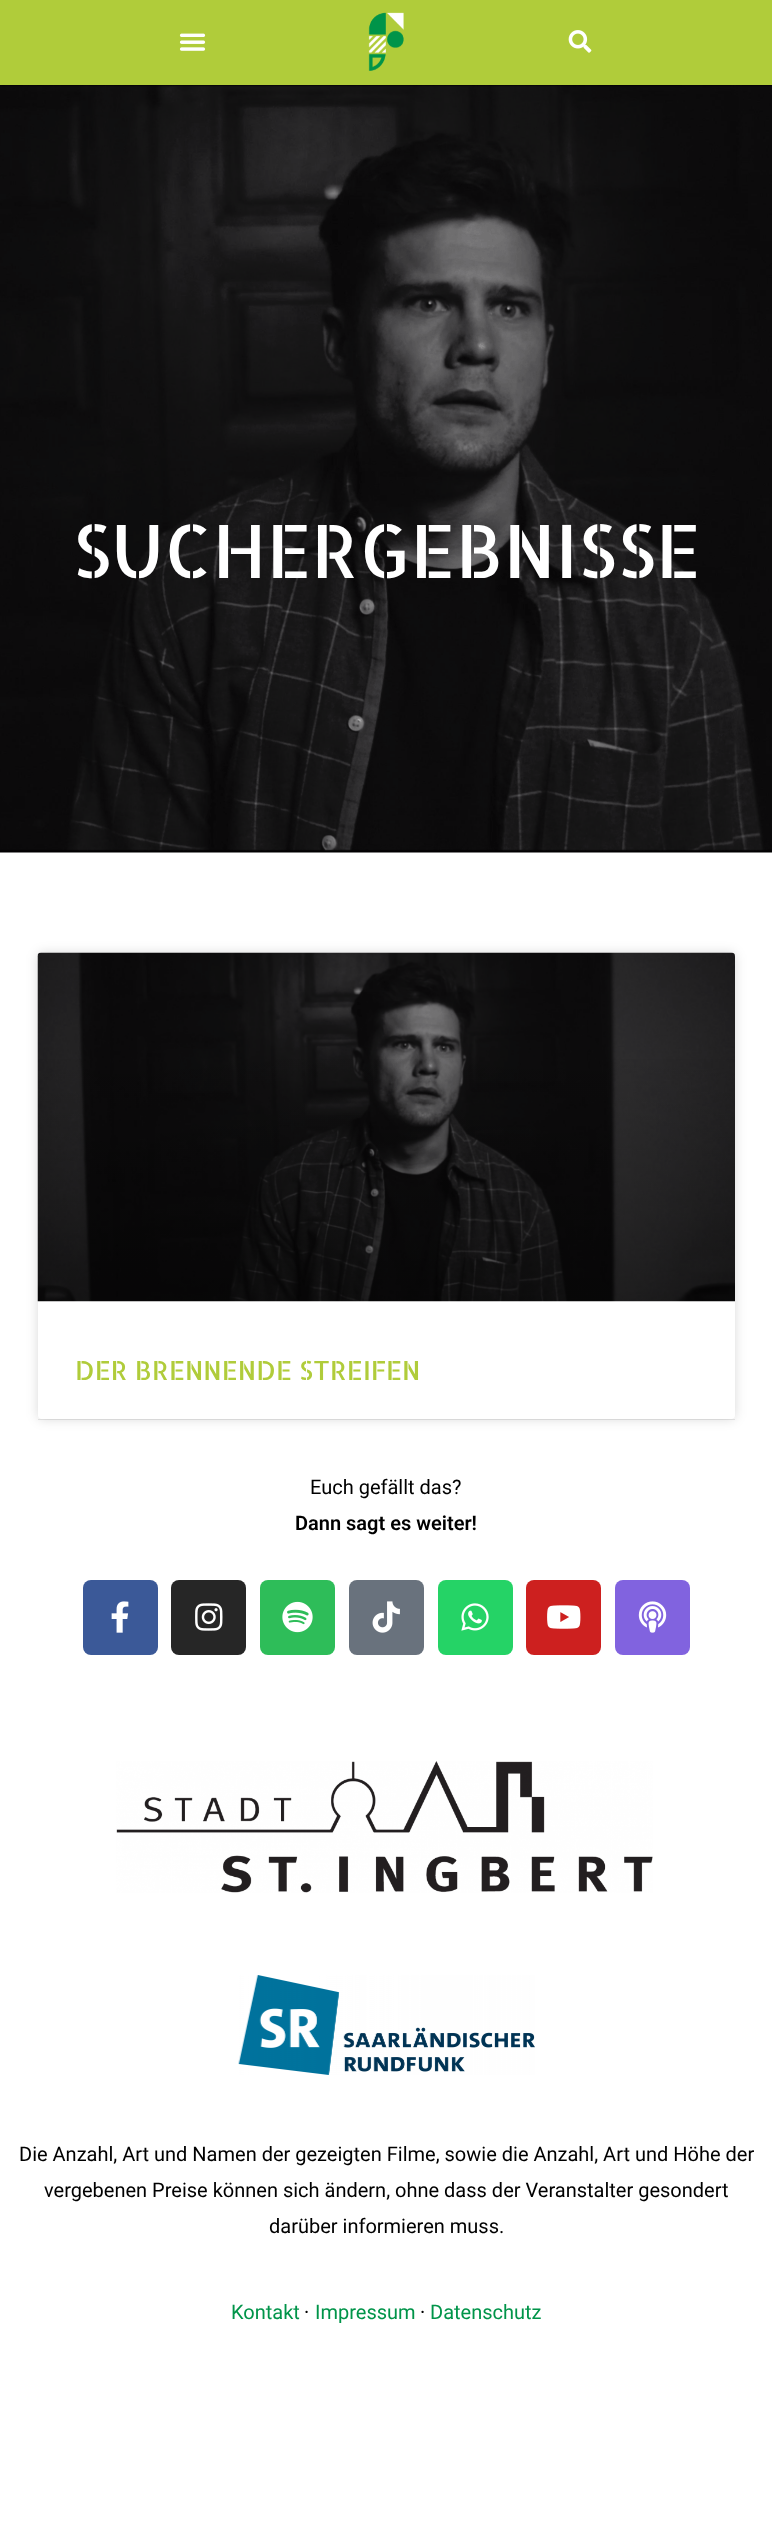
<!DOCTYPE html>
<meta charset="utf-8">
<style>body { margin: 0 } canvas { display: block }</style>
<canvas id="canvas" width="772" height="2526"></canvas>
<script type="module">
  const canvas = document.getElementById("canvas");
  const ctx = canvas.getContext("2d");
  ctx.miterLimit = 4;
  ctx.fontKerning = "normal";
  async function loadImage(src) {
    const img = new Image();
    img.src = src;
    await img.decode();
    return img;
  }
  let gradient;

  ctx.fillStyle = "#ffffff";
  ctx.fillRect(0, 0, 772, 2526);
  ctx.fillStyle = "#b0cc3a";
  ctx.fillRect(0, 0, 772, 85);
  ctx.drawImage(await loadImage("img1.png"), 179, 33, 27, 18);
  ctx.drawImage(await loadImage("img2.png"), 368, 12, 36, 59);
  ctx.drawImage(await loadImage("img3.png"), 568, 30, 24, 23);
  ctx.drawImage(await loadImage("img4.png"), 0, 85, 772, 768);
  ctx.font = "73.75px Allerta Stencil";
  ctx.fillStyle = "#ffffff";
  ctx.fillText("SUCHERGEBNISSE", 72, 578);
  ctx.fillStyle = "#e9e9e9";
  ctx.fillRect(38, 1419, 697, 1);
  ctx.fillStyle = "rgba(0, 0, 0, 0.15)";
  ctx.filter = "blur(6px)";
  ctx.beginPath();
  ctx.roundRect(38, 953, 697, 466, 4);
  ctx.fill();
  ctx.filter = "none";
  ctx.fillStyle = "#ffffff";
  ctx.beginPath();
  ctx.roundRect(38, 953, 697, 466, 4);
  ctx.fill();
  ctx.drawImage(await loadImage("img5.png"), 37, 952, 698, 350);
  gradient = ctx.createLinearGradient(386, 1301, 386, 953);
  gradient.addColorStop(0, "rgba(0, 0, 0, 0.35)");
  gradient.addColorStop(0.75, "rgba(0, 0, 0, 0)");
  ctx.fillStyle = gradient;
  ctx.fillRect(38, 1059, 697, 242);
  ctx.font = "26.25px Allerta Stencil";
  ctx.fillStyle = "#b0cc3a";
  ctx.fillText("DER BRENNENDE STREIFEN", 75, 1380);
  ctx.font = "20px Roboto";
  ctx.fillStyle = "#000000";
  ctx.fillText("Euch gefällt das?", 310, 1494);
  ctx.font = "600 20px Roboto";
  ctx.fillText("Dann sagt es weiter!", 295, 1530);
  ctx.fillStyle = "#3b5998";
  ctx.beginPath();
  ctx.roundRect(83, 1580, 75, 75, 8);
  ctx.fill();
  ctx.drawImage(await loadImage("img6.png"), 111, 1601, 18, 32);
  ctx.fillStyle = "#262626";
  ctx.beginPath();
  ctx.roundRect(171, 1580, 75, 75, 8);
  ctx.fill();
  ctx.drawImage(await loadImage("img7.png"), 195, 1603, 28, 28);
  ctx.fillStyle = "#2ebd59";
  ctx.beginPath();
  ctx.roundRect(260, 1580, 75, 75, 8);
  ctx.fill();
  ctx.drawImage(await loadImage("img8.png"), 282, 1601, 31, 32);
  ctx.fillStyle = "#69727d";
  ctx.beginPath();
  ctx.roundRect(349, 1580, 75, 75, 8);
  ctx.fill();
  ctx.drawImage(await loadImage("img9.png"), 372, 1601, 28, 32);
  ctx.fillStyle = "#25d366";
  ctx.beginPath();
  ctx.roundRect(438, 1580, 75, 75, 8);
  ctx.fill();
  ctx.drawImage(await loadImage("img10.png"), 461, 1603, 28, 28);
  ctx.fillStyle = "#cd201f";
  ctx.beginPath();
  ctx.roundRect(526, 1580, 75, 75, 8);
  ctx.fill();
  ctx.drawImage(await loadImage("img11.png"), 547, 1605, 34, 24);
  ctx.fillStyle = "#8163df";
  ctx.beginPath();
  ctx.roundRect(615, 1580, 75, 75, 8);
  ctx.fill();
  ctx.drawImage(await loadImage("img12.png"), 638, 1601, 29, 32);
  ctx.drawImage(await loadImage("img13.png"), 116, 1761, 537, 132);
  ctx.drawImage(await loadImage("img14.png"), 238, 1975, 297, 100);
  ctx.font = "20px Roboto";
  ctx.fillStyle = "#000000";
  ctx.fillText("Die Anzahl, Art und Namen der gezeigten Filme, sowie die Anzahl, Art und Höhe der", 19, 2161);
  ctx.fillText("vergebenen Preise können sich ändern, ohne dass der Veranstalter gesondert", 44, 2197);
  ctx.fillText("darüber informieren muss.", 269, 2233);
  ctx.fillStyle = "#009449";
  ctx.fillText("Kontakt", 231, 2319);
  ctx.fillStyle = "#000000";
  ctx.fillText("·", 304, 2319);
  ctx.fillStyle = "#009449";
  ctx.fillText("Impressum", 315, 2319);
  ctx.fillStyle = "#000000";
  ctx.fillText("·", 420, 2319);
  ctx.fillStyle = "#009449";
  ctx.fillText("Datenschutz", 430, 2319);
</script>
